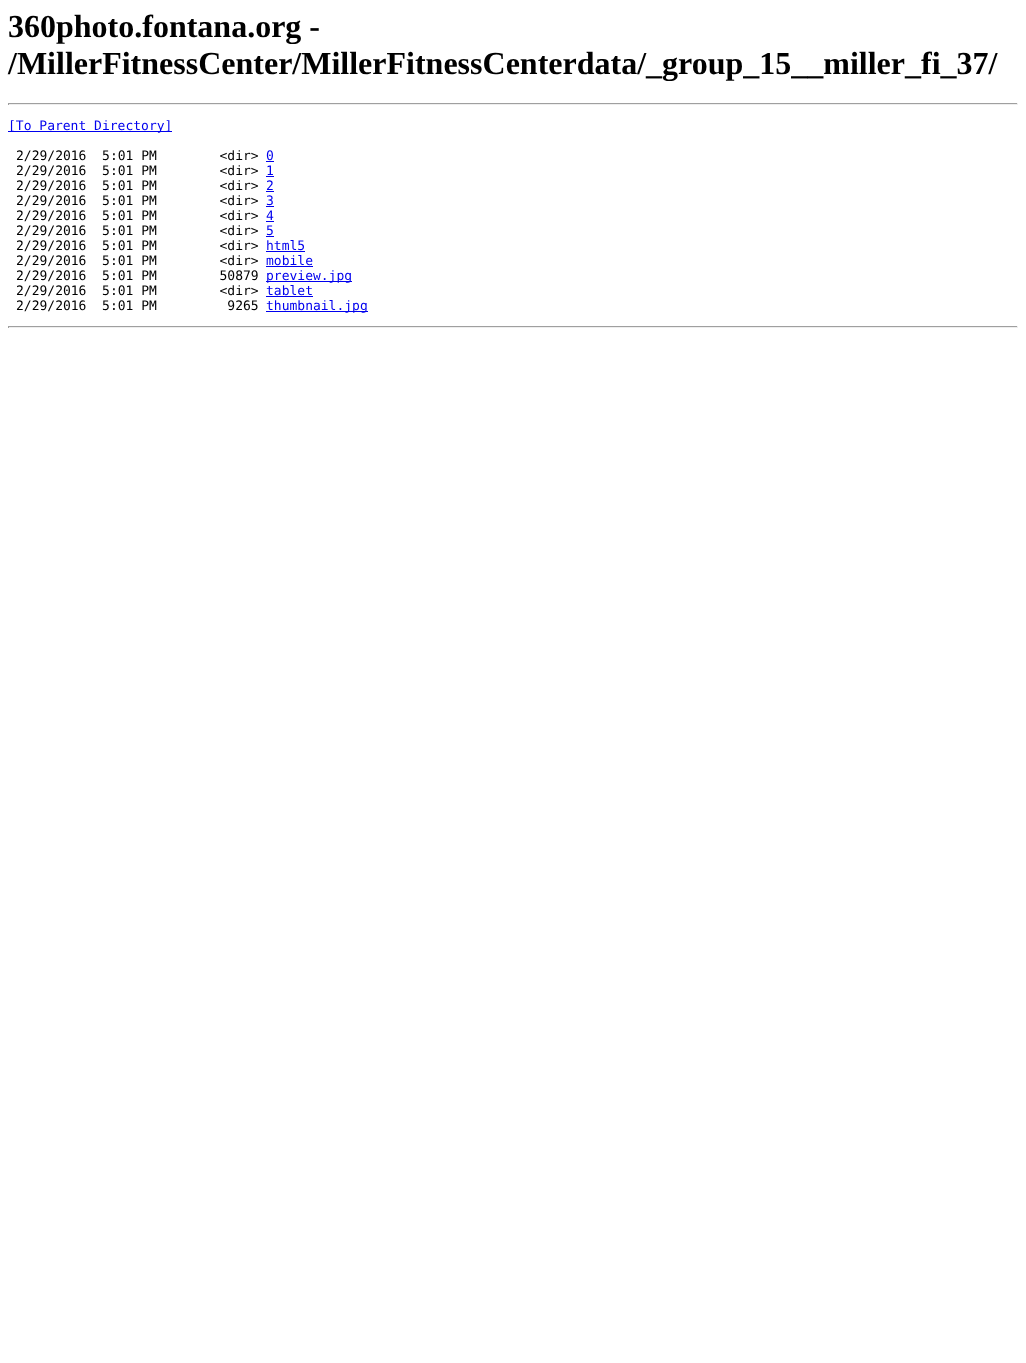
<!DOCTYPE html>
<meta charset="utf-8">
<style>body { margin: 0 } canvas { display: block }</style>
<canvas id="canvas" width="1026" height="1363"></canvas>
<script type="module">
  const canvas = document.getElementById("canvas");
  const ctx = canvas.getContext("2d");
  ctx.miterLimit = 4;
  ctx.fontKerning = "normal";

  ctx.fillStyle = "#ffffff";
  ctx.fillRect(0, 0, 1026, 1363);
  ctx.font = "bold 32px Liberation Serif";
  ctx.fillStyle = "#000000";
  ctx.fillText("360photo.fontana.org -", 8, 37);
  ctx.fillText("/MillerFitnessCenter/MillerFitnessCenterdata/_group_15__miller_fi_37/", 8, 74);
  ctx.fillStyle = "#9f9f9f";
  ctx.fillRect(8, 103, 1010, 1);
  ctx.fillStyle = "#eeeeee";
  ctx.fillRect(1017, 103, 1, 2);
  ctx.fillRect(8, 104, 1010, 1);
  ctx.fillStyle = "#9f9f9f";
  ctx.fillRect(8, 103, 1, 2);
  ctx.fillStyle = "#0000ee";
  ctx.fillRect(8, 131, 164, 1);
  ctx.font = "13px DejaVu Sans Mono";
  ctx.fillText("[To Parent Directory]", 8, 130);
  ctx.fillStyle = "#000000";
  ctx.fillText("2/29/2016  5:01 PM        <dir>", 16, 160);
  ctx.fillStyle = "#0000ee";
  ctx.fillText("0", 266, 160);
  ctx.fillRect(266, 161, 8, 1);
  ctx.fillStyle = "#000000";
  ctx.fillText("2/29/2016  5:01 PM        <dir>", 16, 175);
  ctx.fillStyle = "#0000ee";
  ctx.fillText("1", 266, 175);
  ctx.fillRect(266, 176, 8, 1);
  ctx.fillStyle = "#000000";
  ctx.fillText("2/29/2016  5:01 PM        <dir>", 16, 190);
  ctx.fillStyle = "#0000ee";
  ctx.fillText("2", 266, 190);
  ctx.fillRect(266, 191, 8, 1);
  ctx.fillStyle = "#000000";
  ctx.fillText("2/29/2016  5:01 PM        <dir>", 16, 205);
  ctx.fillStyle = "#0000ee";
  ctx.fillText("3", 266, 205);
  ctx.fillRect(266, 206, 8, 1);
  ctx.fillStyle = "#000000";
  ctx.fillText("2/29/2016  5:01 PM        <dir>", 16, 220);
  ctx.fillStyle = "#0000ee";
  ctx.fillText("4", 266, 220);
  ctx.fillRect(266, 221, 8, 1);
  ctx.fillStyle = "#000000";
  ctx.fillText("2/29/2016  5:01 PM        <dir>", 16, 235);
  ctx.fillStyle = "#0000ee";
  ctx.fillText("5", 266, 235);
  ctx.fillRect(266, 236, 8, 1);
  ctx.fillStyle = "#000000";
  ctx.fillText("2/29/2016  5:01 PM        <dir>", 16, 250);
  ctx.fillStyle = "#0000ee";
  ctx.fillText("html5", 266, 250);
  ctx.fillRect(266, 251, 39, 1);
  ctx.fillStyle = "#000000";
  ctx.fillText("2/29/2016  5:01 PM        <dir>", 16, 265);
  ctx.fillStyle = "#0000ee";
  ctx.fillText("mobile", 266, 265);
  ctx.fillRect(266, 266, 47, 1);
  ctx.fillStyle = "#000000";
  ctx.fillText("2/29/2016  5:01 PM        50879", 16, 280);
  ctx.fillStyle = "#0000ee";
  ctx.fillRect(266, 281, 86, 1);
  ctx.fillText("preview.jpg", 266, 280);
  ctx.fillStyle = "#000000";
  ctx.fillText("2/29/2016  5:01 PM        <dir>", 16, 295);
  ctx.fillStyle = "#0000ee";
  ctx.fillText("tablet", 266, 295);
  ctx.fillRect(266, 296, 47, 1);
  ctx.fillStyle = "#000000";
  ctx.fillText("2/29/2016  5:01 PM         9265", 16, 310);
  ctx.fillStyle = "#0000ee";
  ctx.fillRect(266, 311, 102, 1);
  ctx.fillText("thumbnail.jpg", 266, 310);
  ctx.fillStyle = "#9f9f9f";
  ctx.fillRect(8, 326, 1010, 1);
  ctx.fillStyle = "#eeeeee";
  ctx.fillRect(1017, 326, 1, 2);
  ctx.fillRect(8, 327, 1010, 1);
  ctx.fillStyle = "#9f9f9f";
  ctx.fillRect(8, 326, 1, 2);
</script>
